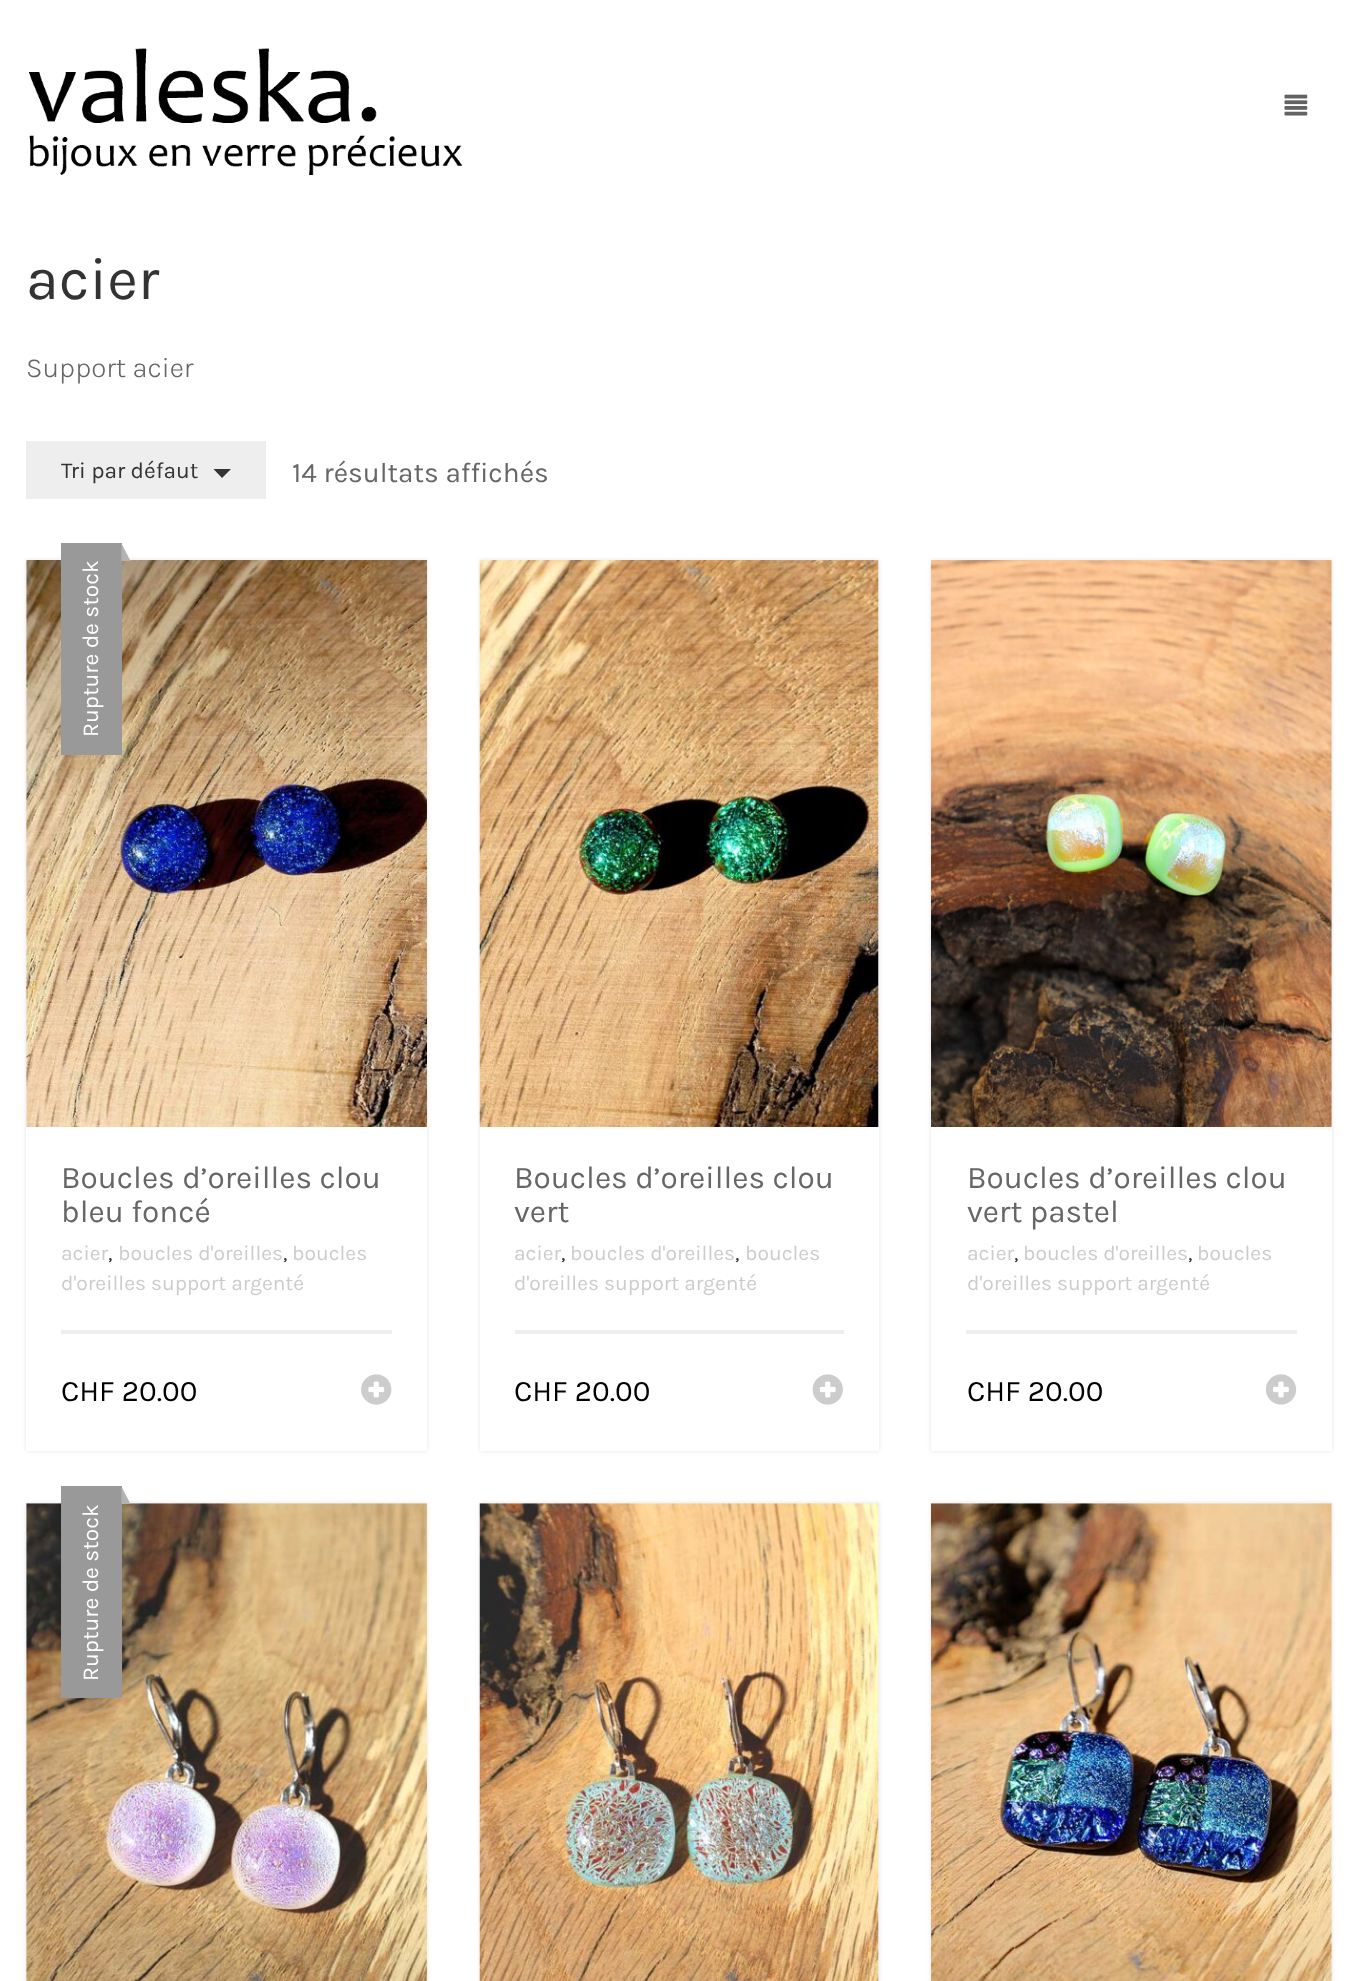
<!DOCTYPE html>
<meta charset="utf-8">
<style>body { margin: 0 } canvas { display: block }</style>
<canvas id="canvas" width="1358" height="1981"></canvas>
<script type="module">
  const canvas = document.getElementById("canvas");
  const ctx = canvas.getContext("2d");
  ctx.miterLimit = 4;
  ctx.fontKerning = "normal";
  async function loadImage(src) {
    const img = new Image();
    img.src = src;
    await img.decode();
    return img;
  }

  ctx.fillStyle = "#ffffff";
  ctx.fillRect(0, 0, 1358, 1981);
  ctx.drawImage(await loadImage("img1.png"), 29, 48, 434, 127);
  ctx.drawImage(await loadImage("img2.png"), 1284, 94, 24, 22);
  ctx.font = "59.5px Karla";
  ctx.fillStyle = "#333333";
  ctx.fillText("acier", 26, 299);
  ctx.font = "300 28px Karla";
  ctx.fillStyle = "#666666";
  ctx.fillText("Support acier", 26, 377);
  ctx.fillStyle = "#eeeeee";
  ctx.fillRect(26, 441, 240, 58);
  ctx.font = "22.75px Karla";
  ctx.fillStyle = "#333333";
  ctx.fillText("Tri par défaut", 61, 478);
  ctx.beginPath();
  ctx.moveTo(213.5, 469);
  ctx.lineTo(231, 469);
  ctx.lineTo(222, 478);
  ctx.closePath();
  ctx.fill();
  ctx.font = "28px Karla";
  ctx.fillStyle = "#666666";
  ctx.fillText("14 résultats affichés", 292, 482);
  ctx.fillStyle = "rgba(204, 204, 204, 0.5)";
  ctx.filter = "blur(2px)";
  ctx.beginPath();
  ctx.rect(26, 560, 401, 891);
  ctx.fill();
  ctx.filter = "none";
  ctx.fillStyle = "#ffffff";
  ctx.fillRect(26, 1127, 401, 324);
  ctx.fillStyle = "#f0f0f0";
  ctx.fillRect(26, 560, 1, 2);
  ctx.drawImage(await loadImage("img3.png"), 26, 560, 401, 567);
  ctx.fillStyle = "#999999";
  ctx.fillRect(61, 543, 61, 212);
  ctx.fillStyle = "#b3b3b3";
  ctx.beginPath();
  ctx.moveTo(121.5, 561);
  ctx.lineTo(121.5, 543.5);
  ctx.lineTo(130.5, 561);
  ctx.closePath();
  ctx.fill();
  ctx.font = "22.75px Karla";
  ctx.fillStyle = "#ffffff";
  ctx.save();
  ctx.translate(98, 737);
  ctx.rotate(-90 * Math.PI / 180);
  ctx.fillText("Rupture de stock", 0, 0);
  ctx.restore();
  ctx.font = "31.5px Karla";
  ctx.fillStyle = "#666666";
  ctx.fillText("Boucles d’oreilles clou", 61, 1188);
  ctx.fillText("bleu foncé", 61, 1222);
  ctx.font = "21px Karla";
  ctx.fillStyle = "#cccccc";
  ctx.fillText("acier", 61, 1260);
  ctx.fillStyle = "#333333";
  ctx.fillText(",", 108, 1260);
  ctx.fillStyle = "#cccccc";
  ctx.fillText("boucles d'oreilles", 118, 1260);
  ctx.fillStyle = "#333333";
  ctx.fillText(",", 283, 1260);
  ctx.fillStyle = "#cccccc";
  ctx.fillText("boucles", 292, 1260);
  ctx.fillText("d'oreilles support argenté", 61, 1290);
  ctx.fillStyle = "#eeeeee";
  ctx.fillRect(61, 1330, 331, 4);
  ctx.font = "29.75px Karla";
  ctx.fillStyle = "#000000";
  ctx.fillText("CHF 20.00", 61, 1401);
  ctx.drawImage(await loadImage("img4.png"), 361, 1374, 31, 31);
  ctx.fillStyle = "rgba(204, 204, 204, 0.5)";
  ctx.filter = "blur(2px)";
  ctx.beginPath();
  ctx.rect(480, 560, 399, 891);
  ctx.fill();
  ctx.filter = "none";
  ctx.fillStyle = "#ffffff";
  ctx.fillRect(480, 1127, 399, 324);
  ctx.fillStyle = "#f0f0f0";
  ctx.fillRect(878, 560, 1, 2);
  ctx.drawImage(await loadImage("img5.png"), 479, 560, 400, 567);
  ctx.font = "31.5px Karla";
  ctx.fillStyle = "#666666";
  ctx.fillText("Boucles d’oreilles clou", 514, 1188);
  ctx.fillText("vert", 514, 1222);
  ctx.font = "21px Karla";
  ctx.fillStyle = "#cccccc";
  ctx.fillText("acier", 514, 1260);
  ctx.fillStyle = "#333333";
  ctx.fillText(",", 561, 1260);
  ctx.fillStyle = "#cccccc";
  ctx.fillText("boucles d'oreilles", 570, 1260);
  ctx.fillStyle = "#333333";
  ctx.fillText(",", 735, 1260);
  ctx.fillStyle = "#cccccc";
  ctx.fillText("boucles", 745, 1260);
  ctx.fillText("d'oreilles support argenté", 514, 1290);
  ctx.fillStyle = "#eeeeee";
  ctx.fillRect(515, 1330, 329, 4);
  ctx.font = "29.75px Karla";
  ctx.fillStyle = "#000000";
  ctx.fillText("CHF 20.00", 514, 1401);
  ctx.drawImage(await loadImage("img6.png"), 812, 1374, 31, 31);
  ctx.fillStyle = "rgba(204, 204, 204, 0.5)";
  ctx.filter = "blur(2px)";
  ctx.beginPath();
  ctx.rect(931, 560, 401, 891);
  ctx.fill();
  ctx.filter = "none";
  ctx.fillStyle = "#ffffff";
  ctx.fillRect(931, 1127, 401, 324);
  ctx.fillStyle = "#f0f0f0";
  ctx.fillRect(1331, 560, 1, 2);
  ctx.drawImage(await loadImage("img7.png"), 931, 560, 401, 567);
  ctx.font = "31.5px Karla";
  ctx.fillStyle = "#666666";
  ctx.fillText("Boucles d’oreilles clou", 967, 1188);
  ctx.fillText("vert pastel", 967, 1222);
  ctx.font = "21px Karla";
  ctx.fillStyle = "#cccccc";
  ctx.fillText("acier", 967, 1260);
  ctx.fillStyle = "#333333";
  ctx.fillText(",", 1014, 1260);
  ctx.fillStyle = "#cccccc";
  ctx.fillText("boucles d'oreilles", 1023, 1260);
  ctx.fillStyle = "#333333";
  ctx.fillText(",", 1188, 1260);
  ctx.fillStyle = "#cccccc";
  ctx.fillText("boucles", 1197, 1260);
  ctx.fillText("d'oreilles support argenté", 967, 1290);
  ctx.fillStyle = "#eeeeee";
  ctx.fillRect(966, 1330, 331, 4);
  ctx.font = "29.75px Karla";
  ctx.fillStyle = "#000000";
  ctx.fillText("CHF 20.00", 967, 1401);
  ctx.drawImage(await loadImage("img8.png"), 1265, 1374, 32, 31);
  ctx.fillStyle = "rgba(204, 204, 204, 0.5)";
  ctx.filter = "blur(2px)";
  ctx.beginPath();
  ctx.rect(26, 1503, 401, 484);
  ctx.fill();
  ctx.filter = "none";
  ctx.fillStyle = "#f0f0f0";
  ctx.fillRect(26, 1503, 401, 478);
  ctx.drawImage(await loadImage("img9.png"), 26, 1503, 401, 478);
  ctx.fillStyle = "#999999";
  ctx.fillRect(61, 1486, 61, 212);
  ctx.fillStyle = "#b3b3b3";
  ctx.beginPath();
  ctx.moveTo(121.5, 1504);
  ctx.lineTo(121.5, 1486.5);
  ctx.lineTo(130.5, 1504);
  ctx.closePath();
  ctx.fill();
  ctx.font = "22.75px Karla";
  ctx.fillStyle = "#ffffff";
  ctx.save();
  ctx.translate(98, 1681);
  ctx.rotate(-90 * Math.PI / 180);
  ctx.fillText("Rupture de stock", 0, 0);
  ctx.restore();
  ctx.fillStyle = "rgba(204, 204, 204, 0.5)";
  ctx.filter = "blur(2px)";
  ctx.beginPath();
  ctx.rect(480, 1503, 399, 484);
  ctx.fill();
  ctx.filter = "none";
  ctx.fillStyle = "#f0f0f0";
  ctx.fillRect(480, 1503, 399, 478);
  ctx.drawImage(await loadImage("img10.png"), 479, 1503, 400, 478);
  ctx.fillStyle = "rgba(204, 204, 204, 0.5)";
  ctx.filter = "blur(2px)";
  ctx.beginPath();
  ctx.rect(931, 1503, 401, 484);
  ctx.fill();
  ctx.filter = "none";
  ctx.fillStyle = "#f0f0f0";
  ctx.fillRect(931, 1503, 401, 478);
  ctx.drawImage(await loadImage("img11.png"), 931, 1503, 401, 478);
</script>
